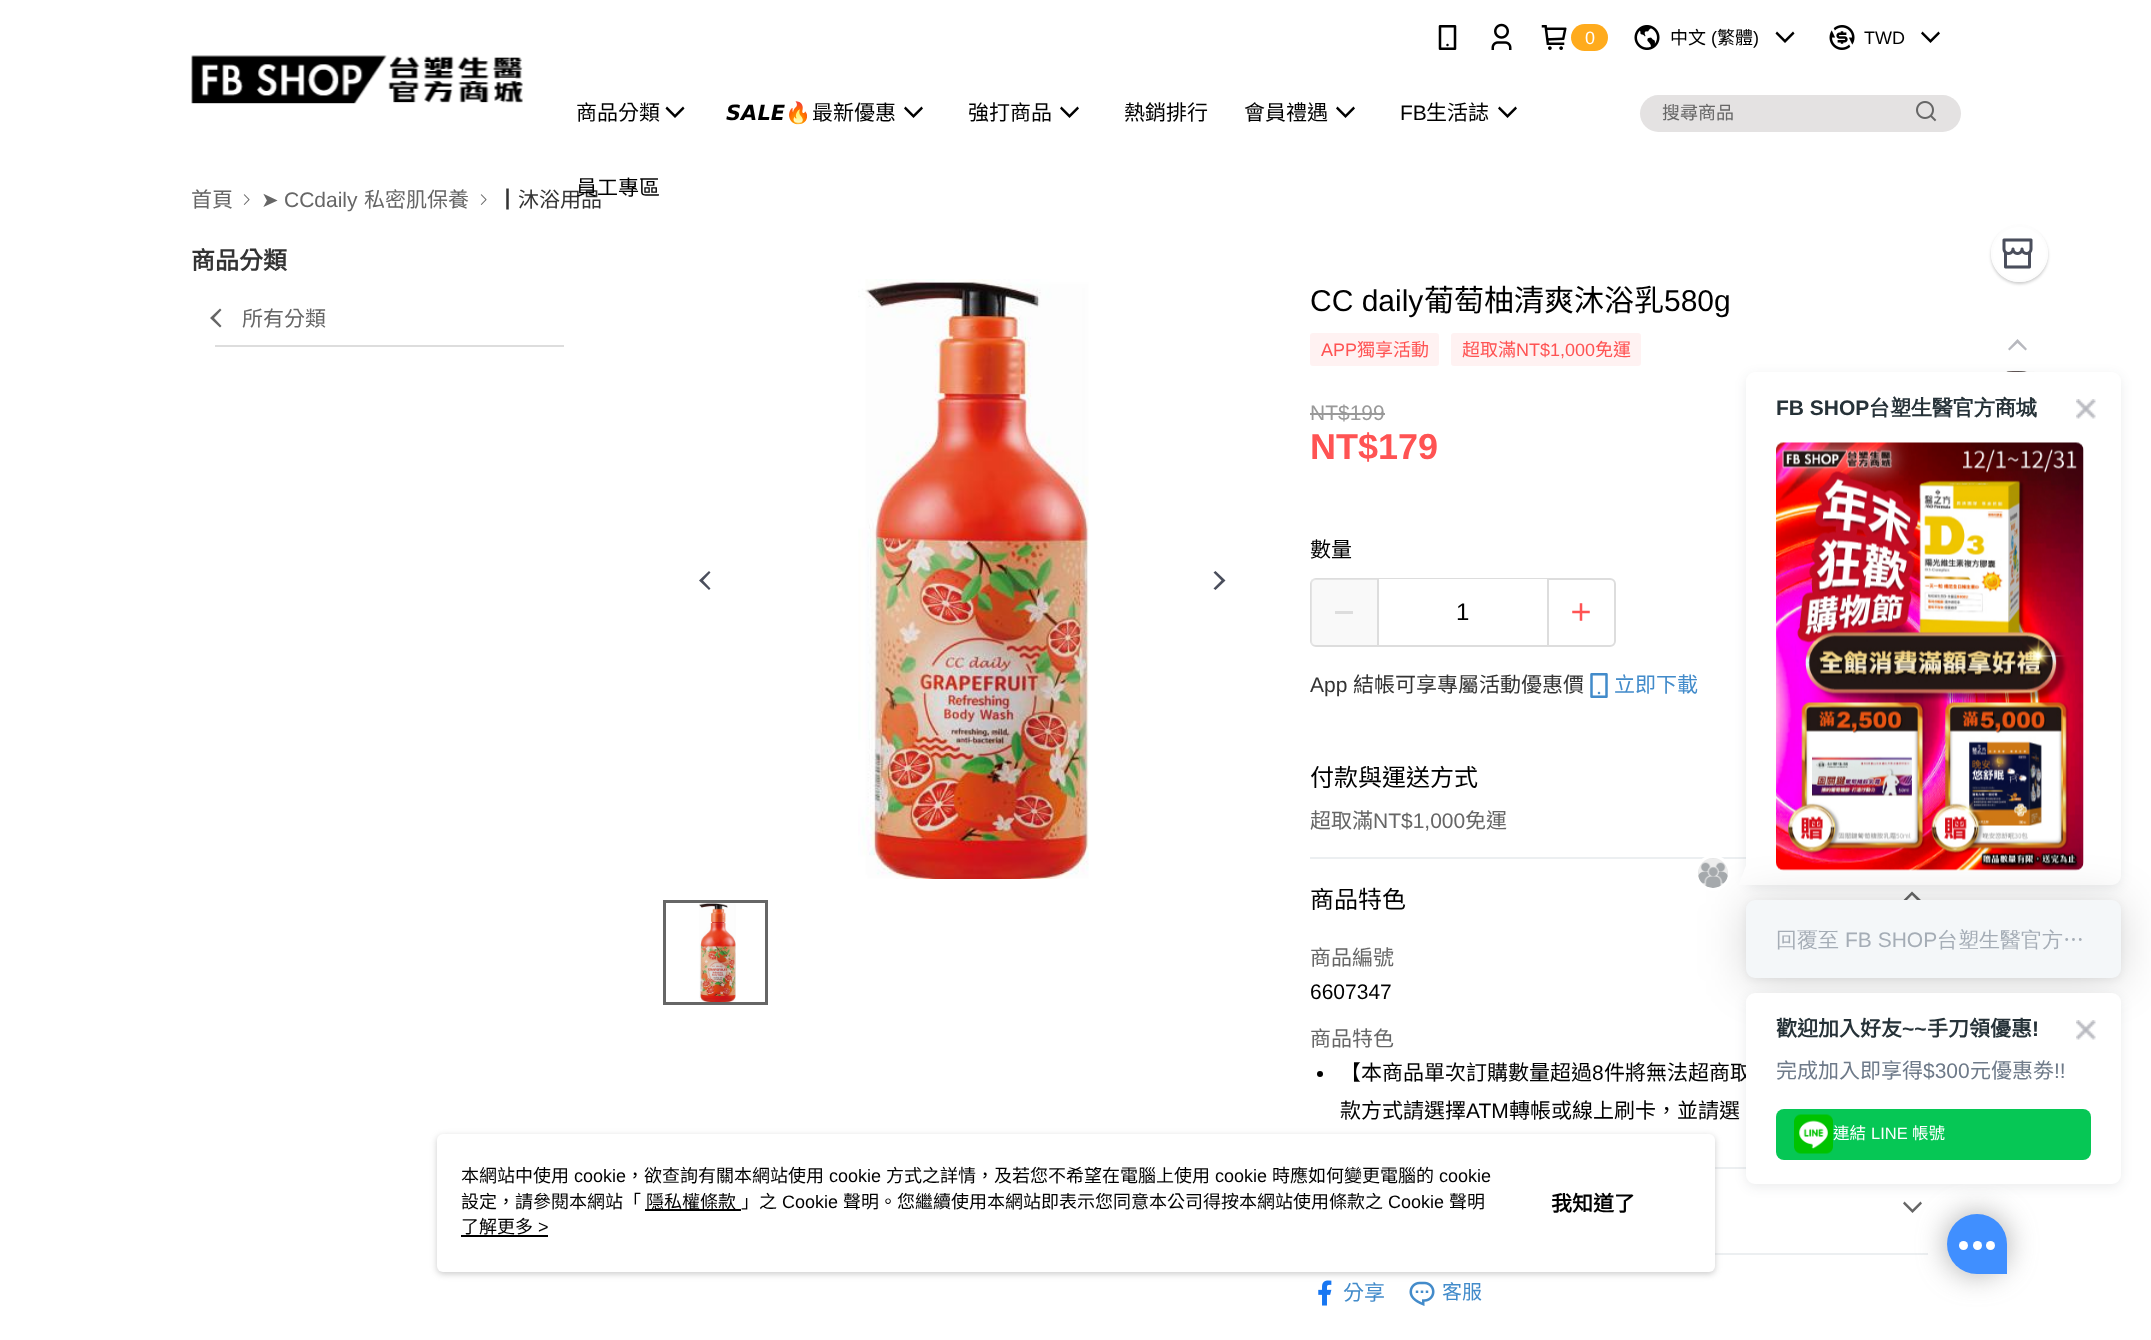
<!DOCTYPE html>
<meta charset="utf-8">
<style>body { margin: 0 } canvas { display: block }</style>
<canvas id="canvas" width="2151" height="1340"></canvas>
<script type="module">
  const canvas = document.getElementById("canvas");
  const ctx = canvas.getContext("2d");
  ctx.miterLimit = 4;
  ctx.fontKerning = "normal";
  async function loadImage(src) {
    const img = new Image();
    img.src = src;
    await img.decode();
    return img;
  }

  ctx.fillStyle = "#ffffff";
  ctx.fillRect(0, 0, 2151, 1340);
  ctx.drawImage(await loadImage("img1.png"), 191, 55, 332, 49);
  ctx.drawImage(await loadImage("img2.png"), 1438, 25, 19, 25);
  ctx.drawImage(await loadImage("img3.png"), 1491, 23, 21, 27);
  ctx.drawImage(await loadImage("img4.png"), 1541, 25, 26, 25);
  ctx.fillStyle = "#ffab1d";
  ctx.beginPath();
  ctx.roundRect(1571, 24, 37, 27, 13.5);
  ctx.fill();
  ctx.font = "18px Liberation Sans";
  ctx.fillStyle = "#ffffff";
  ctx.fillText("0", 1585, 44);
  ctx.drawImage(await loadImage("img5.png"), 1634, 25, 26, 25);
  ctx.font = "18px Noto Sans CJK TC";
  ctx.fillStyle = "#000000";
  ctx.fillText("中文", 1670, 44);
  ctx.font = "18px Liberation Sans";
  ctx.fillText("(", 1711, 44);
  ctx.font = "18px Noto Sans CJK TC";
  ctx.fillText("繁體", 1717, 44);
  ctx.font = "18px Liberation Sans";
  ctx.fillText(")", 1753, 44);
  ctx.beginPath();
  ctx.moveTo(1777, 31.5);
  ctx.lineTo(1775.5, 33.5);
  ctx.lineTo(1785, 43);
  ctx.lineTo(1794.5, 33.5);
  ctx.lineTo(1793, 31.5);
  ctx.lineTo(1785, 39.5);
  ctx.closePath();
  ctx.fill();
  ctx.drawImage(await loadImage("img6.png"), 1829, 25, 26, 25);
  ctx.fillText("TWD", 1864, 44);
  ctx.beginPath();
  ctx.moveTo(1922.5, 31.5);
  ctx.lineTo(1921, 33.5);
  ctx.lineTo(1930.5, 43);
  ctx.lineTo(1940, 33.5);
  ctx.lineTo(1938.5, 31.5);
  ctx.lineTo(1930.5, 39.5);
  ctx.closePath();
  ctx.fill();
  ctx.font = "21px Noto Sans CJK TC";
  ctx.fillText("商品分類", 576, 120);
  ctx.beginPath();
  ctx.moveTo(667, 106.5);
  ctx.lineTo(665.5, 108.5);
  ctx.lineTo(675, 118);
  ctx.lineTo(684.5, 108.5);
  ctx.lineTo(683, 106.5);
  ctx.lineTo(675, 114.5);
  ctx.closePath();
  ctx.fill();
  ctx.font = "italic bold 21px DejaVu Sans";
  ctx.fillText("𝙎𝘼𝙇𝙀", 726, 120);
  ctx.font = "21px Noto Color Emoji";
  ctx.fillText("🔥", 785, 120);
  ctx.font = "21px Noto Sans CJK TC";
  ctx.fillText("最新優惠", 812, 120);
  ctx.beginPath();
  ctx.moveTo(905.5, 106.5);
  ctx.lineTo(904, 108.5);
  ctx.lineTo(913.5, 118);
  ctx.lineTo(923, 108.5);
  ctx.lineTo(921.5, 106.5);
  ctx.lineTo(913.5, 114.5);
  ctx.closePath();
  ctx.fill();
  ctx.fillText("強打商品", 968, 120);
  ctx.beginPath();
  ctx.moveTo(1061.5, 106.5);
  ctx.lineTo(1060, 108.5);
  ctx.lineTo(1069.5, 118);
  ctx.lineTo(1079, 108.5);
  ctx.lineTo(1077.5, 106.5);
  ctx.lineTo(1069.5, 114.5);
  ctx.closePath();
  ctx.fill();
  ctx.fillText("熱銷排行", 1124, 120);
  ctx.fillText("會員禮遇", 1244, 120);
  ctx.beginPath();
  ctx.moveTo(1337.5, 106.5);
  ctx.lineTo(1336, 108.5);
  ctx.lineTo(1345.5, 118);
  ctx.lineTo(1355, 108.5);
  ctx.lineTo(1353.5, 106.5);
  ctx.lineTo(1345.5, 114.5);
  ctx.closePath();
  ctx.fill();
  ctx.font = "21px Liberation Sans";
  ctx.fillText("FB", 1400, 120);
  ctx.font = "21px Noto Sans CJK TC";
  ctx.fillText("生活誌", 1426, 120);
  ctx.beginPath();
  ctx.moveTo(1499.5, 106.5);
  ctx.lineTo(1498, 108.5);
  ctx.lineTo(1507.5, 118);
  ctx.lineTo(1517, 108.5);
  ctx.lineTo(1515.5, 106.5);
  ctx.lineTo(1507.5, 114.5);
  ctx.closePath();
  ctx.fill();
  ctx.fillStyle = "#333333";
  ctx.fillText("┃沐浴用品", 497, 207);
  ctx.fillStyle = "#000000";
  ctx.fillText("員工專區", 576, 195);
  ctx.fillStyle = "#e4e2e2";
  ctx.beginPath();
  ctx.roundRect(1640, 95, 321, 37, 18.5);
  ctx.fill();
  ctx.font = "18px Noto Sans CJK TC";
  ctx.fillStyle = "#666666";
  ctx.fillText("搜尋商品", 1662, 119);
  ctx.drawImage(await loadImage("img7.png"), 1916, 101, 21, 21);
  ctx.font = "21px Noto Sans CJK TC";
  ctx.fillText("首頁", 191, 207);
  ctx.drawImage(await loadImage("img8.png"), 243, 194, 7, 11);
  ctx.font = "21px DejaVu Sans";
  ctx.fillText("➤", 261, 207);
  ctx.font = "21px Liberation Sans";
  ctx.fillText("CCdaily", 284, 207);
  ctx.font = "21px Noto Sans CJK TC";
  ctx.fillText("私密肌保養", 364, 207);
  ctx.drawImage(await loadImage("img8.png"), 480, 194, 7, 11);
  ctx.font = "bold 24px Noto Sans CJK TC";
  ctx.fillStyle = "#333333";
  ctx.fillText("商品分類", 191, 269);
  ctx.fillStyle = "#666666";
  ctx.beginPath();
  ctx.moveTo(221.5, 310);
  ctx.lineTo(220, 308.5);
  ctx.lineTo(210, 318);
  ctx.lineTo(220, 327.5);
  ctx.lineTo(221.5, 326);
  ctx.lineTo(214, 318);
  ctx.closePath();
  ctx.fill();
  ctx.font = "21px Noto Sans CJK TC";
  ctx.fillText("所有分類", 242, 326);
  ctx.fillStyle = "#dddddd";
  ctx.fillRect(215, 345, 349, 2);
  ctx.fillStyle = "#4a4e5c";
  ctx.beginPath();
  ctx.moveTo(710.5, 572.5);
  ctx.lineTo(709, 571);
  ctx.lineTo(699, 580.5);
  ctx.lineTo(709, 590);
  ctx.lineTo(710.5, 588.5);
  ctx.lineTo(703, 580.5);
  ctx.closePath();
  ctx.fill();
  ctx.drawImage(await loadImage("img9.png"), 858, 279, 231, 600);
  ctx.beginPath();
  ctx.moveTo(1213.5, 588.5);
  ctx.lineTo(1215.5, 590);
  ctx.lineTo(1225.5, 580.5);
  ctx.lineTo(1215.5, 571);
  ctx.lineTo(1213.5, 572.5);
  ctx.lineTo(1221.5, 580.5);
  ctx.closePath();
  ctx.fill();
  ctx.drawImage(await loadImage("img10.png"), 699, 903, 37, 99);
  ctx.strokeStyle = "#666666";
  ctx.lineWidth = 3;
  ctx.strokeRect(664.5, 901.5, 102, 102);
  ctx.font = "30px Liberation Sans";
  ctx.fillStyle = "#000000";
  ctx.fillText("CC daily", 1310, 311);
  ctx.font = "30px Noto Sans CJK TC";
  ctx.fillText("葡萄柚清爽沐浴乳", 1424, 311);
  ctx.font = "30px Liberation Sans";
  ctx.fillText("580g", 1664, 311);
  ctx.fillStyle = "#fff2f2";
  ctx.beginPath();
  ctx.roundRect(1311, 334, 127, 31, 2);
  ctx.fill();
  ctx.strokeStyle = "#fff2f2";
  ctx.lineWidth = 2;
  ctx.stroke();
  ctx.font = "18px Liberation Sans";
  ctx.fillStyle = "#ff5353";
  ctx.fillText("APP", 1321, 356);
  ctx.font = "18px Noto Sans CJK TC";
  ctx.fillText("獨享活動", 1357, 356);
  ctx.fillStyle = "#fff2f2";
  ctx.beginPath();
  ctx.roundRect(1452, 334, 188, 31, 2);
  ctx.fill();
  ctx.stroke();
  ctx.fillStyle = "#ff5353";
  ctx.fillText("超取滿", 1462, 356);
  ctx.font = "18px Liberation Sans";
  ctx.fillText("NT$1,000", 1516, 356);
  ctx.font = "18px Noto Sans CJK TC";
  ctx.fillText("免運", 1595, 356);
  ctx.font = "21px Liberation Sans";
  ctx.fillStyle = "#999999";
  ctx.fillText("NT$199", 1310, 420);
  ctx.fillRect(1310, 413, 75, 2);
  ctx.font = "bold 36px Liberation Sans";
  ctx.fillStyle = "#ff5353";
  ctx.fillText("NT$179", 1310, 459);
  ctx.font = "21px Noto Sans CJK TC";
  ctx.fillStyle = "#000000";
  ctx.fillText("數量", 1310, 557);
  ctx.beginPath();
  ctx.roundRect(1311, 579, 304, 67, 5);
  ctx.strokeStyle = "#dddddd";
  ctx.stroke();
  ctx.fillStyle = "rgba(241, 241, 241, 0.4)";
  ctx.fillRect(1311, 579, 66, 66);
  ctx.fillStyle = "#dddddd";
  ctx.fillRect(1335, 611, 18, 3);
  ctx.fillRect(1547, 579, 2, 66);
  ctx.fillRect(1377, 579, 2, 66);
  ctx.fillStyle = "#ffffff";
  ctx.fillRect(1379, 579, 168, 1);
  ctx.font = "24px Liberation Sans";
  ctx.fillStyle = "#000000";
  ctx.fillText("1", 1456, 620);
  ctx.drawImage(await loadImage("img11.png"), 1572, 603, 18, 18);
  ctx.font = "21px Liberation Sans";
  ctx.fillStyle = "#333333";
  ctx.fillText("App", 1310, 692);
  ctx.font = "21px Noto Sans CJK TC";
  ctx.fillText("結帳可享專屬活動優惠價", 1353, 692);
  ctx.drawImage(await loadImage("img12.png"), 1590, 673, 18, 25);
  ctx.fillStyle = "#428bca";
  ctx.fillText("立即下載", 1614, 692);
  ctx.fillStyle = "#eceff1";
  ctx.fillRect(1310, 857, 436, 2);
  ctx.font = "24px Noto Sans CJK TC";
  ctx.fillStyle = "#000000";
  ctx.fillText("付款與運送方式", 1310, 786);
  ctx.font = "21px Noto Sans CJK TC";
  ctx.fillStyle = "#666666";
  ctx.fillText("超取滿", 1310, 828);
  ctx.font = "21px Liberation Sans";
  ctx.fillText("NT$1,000", 1373, 828);
  ctx.font = "21px Noto Sans CJK TC";
  ctx.fillText("免運", 1465, 828);
  ctx.fillStyle = "#eceff1";
  ctx.fillRect(1715, 1167, 31, 2);
  ctx.font = "24px Noto Sans CJK TC";
  ctx.fillStyle = "#000000";
  ctx.fillText("商品特色", 1310, 908);
  ctx.fillStyle = "#666666";
  ctx.beginPath();
  ctx.moveTo(1920, 903);
  ctx.lineTo(1922, 901);
  ctx.lineTo(1912, 891.5);
  ctx.lineTo(1902.5, 901);
  ctx.lineTo(1904, 903);
  ctx.lineTo(1912, 895);
  ctx.closePath();
  ctx.fill();
  ctx.font = "21px Noto Sans CJK TC";
  ctx.fillText("商品編號", 1310, 965);
  ctx.font = "21px Liberation Sans";
  ctx.fillStyle = "#000000";
  ctx.fillText("6607347", 1310, 999);
  ctx.font = "21px Noto Sans CJK TC";
  ctx.fillStyle = "#666666";
  ctx.fillText("商品特色", 1310, 1046);
  ctx.fillStyle = "#000000";
  ctx.beginPath();
  ctx.arc(1320, 1074, 3, 0, Math.PI * 2);
  ctx.fill();
  ctx.fillText("【本商品單次訂購數量超過", 1340, 1080);
  ctx.font = "21px Liberation Sans";
  ctx.fillText("8", 1592, 1080);
  ctx.font = "21px Noto Sans CJK TC";
  ctx.fillText("件將無法超商取", 1604, 1080);
  ctx.fillText("款方式請選擇", 1340, 1118);
  ctx.font = "21px Liberation Sans";
  ctx.fillText("ATM", 1466, 1118);
  ctx.font = "21px Noto Sans CJK TC";
  ctx.fillText("轉帳或線上刷卡，並請選", 1509, 1118);
  ctx.fillStyle = "#eceff1";
  ctx.fillRect(1715, 1253, 213, 2);
  ctx.fillStyle = "#666666";
  ctx.beginPath();
  ctx.moveTo(1904.5, 1201.5);
  ctx.lineTo(1903, 1203.5);
  ctx.lineTo(1912.5, 1213);
  ctx.lineTo(1922, 1203.5);
  ctx.lineTo(1920.5, 1201.5);
  ctx.lineTo(1912.5, 1209.5);
  ctx.closePath();
  ctx.fill();
  ctx.drawImage(await loadImage("img13.png"), 1318, 1280, 14, 26);
  ctx.fillStyle = "#428bca";
  ctx.fillText("分享", 1343, 1300);
  ctx.drawImage(await loadImage("img14.png"), 1409, 1281, 26, 25);
  ctx.font = "20px Noto Sans CJK TC";
  ctx.fillText("客服", 1442, 1299);
  ctx.save();
  ctx.beginPath();
  ctx.moveTo(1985, 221);
  ctx.lineTo(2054, 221);
  ctx.lineTo(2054, 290);
  ctx.lineTo(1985, 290);
  ctx.closePath();
  ctx.moveTo(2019.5, 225);
  ctx.bezierCurveTo(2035, 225, 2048, 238, 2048, 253.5);
  ctx.bezierCurveTo(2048, 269, 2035, 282, 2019.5, 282);
  ctx.bezierCurveTo(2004, 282, 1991, 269, 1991, 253.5);
  ctx.bezierCurveTo(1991, 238, 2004, 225, 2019.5, 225);
  ctx.closePath();
  ctx.clip("evenodd");
  ctx.fillStyle = "rgba(0, 0, 0, 0.2)";
  ctx.filter = "blur(1.5px)";
  ctx.beginPath();
  ctx.roundRect(1991, 227, 57, 57, 28.5);
  ctx.fill();
  ctx.filter = "none";
  ctx.restore();
  ctx.fillStyle = "rgba(255, 255, 255, 0.9)";
  ctx.beginPath();
  ctx.arc(2019.5, 253.5, 27.5, 0, Math.PI * 2);
  ctx.fill();
  ctx.strokeStyle = "#fdfdfd";
  ctx.stroke();
  ctx.drawImage(await loadImage("img15.png"), 2002, 238, 31, 31);
  ctx.fillStyle = "#b7b8be";
  ctx.beginPath();
  ctx.moveTo(2025.5, 350.5);
  ctx.lineTo(2027, 349);
  ctx.lineTo(2017.5, 339);
  ctx.lineTo(2008, 349);
  ctx.lineTo(2009.5, 350.5);
  ctx.lineTo(2017.5, 343);
  ctx.closePath();
  ctx.fill();
  ctx.drawImage(await loadImage("img16.png"), 2006, 371, 29, 1);
  ctx.fillStyle = "rgba(35, 47, 53, 0.09)";
  ctx.filter = "blur(6px)";
  ctx.beginPath();
  ctx.roundRect(1746, 375, 375, 513, 9);
  ctx.fill();
  ctx.filter = "none";
  ctx.fillStyle = "#ffffff";
  ctx.beginPath();
  ctx.roundRect(1746, 372, 375, 513, [9, 9, 9, 0]);
  ctx.fill();
  ctx.font = "bold 21px Liberation Sans";
  ctx.fillStyle = "#263238";
  ctx.fillText("FB SHOP", 1776, 415);
  ctx.font = "bold 21px WenQuanYi Zen Hei";
  ctx.fillText("台塑生醫官方商城", 1869, 415);
  ctx.drawImage(await loadImage("img17.png"), 2076, 399, 20, 20);
  ctx.drawImage(await loadImage("img18.png"), 1776, 442, 308, 429);
  ctx.fillStyle = "#ffffff";
  ctx.beginPath();
  ctx.moveTo(1746, 885);
  ctx.lineTo(1738.5, 885);
  ctx.lineTo(1746, 865.5);
  ctx.closePath();
  ctx.fill();
  ctx.fillStyle = "rgba(0, 0, 0, 0.16)";
  ctx.filter = "blur(24px)";
  ctx.beginPath();
  ctx.roundRect(1746, 903, 375, 78, 9);
  ctx.fill();
  ctx.filter = "none";
  ctx.fillStyle = "#ffffff";
  ctx.beginPath();
  ctx.arc(1713, 873, 16.5, 0, Math.PI * 2);
  ctx.fill();
  ctx.strokeStyle = "#ffffff";
  ctx.lineWidth = 3;
  ctx.stroke();
  ctx.drawImage(await loadImage("img19.png"), 1698, 858, 30, 30);
  ctx.fillStyle = "rgba(0, 0, 0, 0.06)";
  ctx.filter = "blur(4.5px)";
  ctx.beginPath();
  ctx.roundRect(1746, 902, 375, 78, 9);
  ctx.fill();
  ctx.filter = "none";
  ctx.fillStyle = "#f4f7f9";
  ctx.beginPath();
  ctx.roundRect(1746, 900, 375, 78, 9);
  ctx.fill();
  ctx.font = "500 21px WenQuanYi Zen Hei";
  ctx.fillStyle = "#a5adb6";
  ctx.fillText("回覆至", 1776, 947);
  ctx.font = "21px Liberation Sans";
  ctx.fillText("FB SHOP", 1845, 947);
  ctx.font = "500 21px WenQuanYi Zen Hei";
  ctx.fillText("台塑生醫官方…", 1937, 947);
  ctx.fillStyle = "rgba(35, 47, 53, 0.09)";
  ctx.filter = "blur(6px)";
  ctx.beginPath();
  ctx.roundRect(1746, 996, 375, 191, 9);
  ctx.fill();
  ctx.filter = "none";
  ctx.fillStyle = "rgba(119, 119, 119, 0.64)";
  ctx.filter = "blur(15px)";
  ctx.beginPath();
  ctx.roundRect(1947, 1214, 60, 60, 30);
  ctx.fill();
  ctx.filter = "none";
  ctx.fillStyle = "#ffffff";
  ctx.beginPath();
  ctx.roundRect(1746, 993, 375, 191, 9);
  ctx.fill();
  ctx.font = "bold 21px Noto Sans CJK TC";
  ctx.fillStyle = "#263238";
  ctx.fillText("歡迎加入好友", 1776, 1036);
  ctx.font = "bold 21px Liberation Sans";
  ctx.fillText("~~", 1902, 1036);
  ctx.font = "bold 21px Noto Sans CJK TC";
  ctx.fillText("手刀領優惠", 1927, 1036);
  ctx.font = "bold 21px Liberation Sans";
  ctx.fillText("!", 2032, 1036);
  ctx.drawImage(await loadImage("img17.png"), 2076, 1020, 20, 20);
  ctx.font = "21px Noto Sans CJK TC";
  ctx.fillStyle = "#6e7a89";
  ctx.fillText("完成加入即享得", 1776, 1078);
  ctx.font = "21px Liberation Sans";
  ctx.fillText("$300", 1923, 1078);
  ctx.font = "21px Noto Sans CJK TC";
  ctx.fillText("元優惠劵", 1970, 1078);
  ctx.font = "21px Liberation Sans";
  ctx.fillText("!!", 2054, 1078);
  ctx.fillStyle = "#06c755";
  ctx.beginPath();
  ctx.roundRect(1776, 1109, 315, 51, 8);
  ctx.fill();
  ctx.drawImage(await loadImage("img20.png"), 1794, 1114, 39, 40);
  ctx.font = "16.5px Noto Sans CJK TC";
  ctx.fillStyle = "#ffffff";
  ctx.fillText("連結", 1833, 1139);
  ctx.font = "16.5px Liberation Sans";
  ctx.fillText("LINE", 1871, 1139);
  ctx.font = "16.5px Noto Sans CJK TC";
  ctx.fillText("帳號", 1912, 1139);
  ctx.fillStyle = "rgba(151, 151, 151, 0.5)";
  ctx.filter = "blur(3px)";
  ctx.beginPath();
  ctx.roundRect(437, 1136, 1278, 138, 6);
  ctx.fill();
  ctx.filter = "none";
  ctx.fillStyle = "#ffffff";
  ctx.beginPath();
  ctx.roundRect(437, 1134, 1278, 138, 6);
  ctx.fill();
  ctx.font = "18px Noto Sans CJK TC";
  ctx.fillStyle = "#000000";
  ctx.fillText("本網站中使用", 461, 1182);
  ctx.font = "18px Liberation Sans";
  ctx.fillText("cookie", 574, 1182);
  ctx.font = "18px Noto Sans CJK TC";
  ctx.fillText("，欲查詢有關本網站使用", 626, 1182);
  ctx.font = "18px Liberation Sans";
  ctx.fillText("cookie", 829, 1182);
  ctx.font = "18px Noto Sans CJK TC";
  ctx.fillText("方式之詳情，及若您不希望在電腦上使用", 886, 1182);
  ctx.font = "18px Liberation Sans";
  ctx.fillText("cookie", 1215, 1182);
  ctx.font = "18px Noto Sans CJK TC";
  ctx.fillText("時應如何變更電腦的", 1272, 1182);
  ctx.font = "18px Liberation Sans";
  ctx.fillText("cookie", 1439, 1182);
  ctx.font = "18px Noto Sans CJK TC";
  ctx.fillText("設定，請參閱本網站「", 461, 1208);
  ctx.fillRect(645, 1209, 96, 2);
  ctx.fillText("隱私權條款", 646, 1208);
  ctx.fillText("」之", 741, 1208);
  ctx.font = "18px Liberation Sans";
  ctx.fillText("Cookie", 782, 1208);
  ctx.font = "18px Noto Sans CJK TC";
  ctx.fillText("聲明。您繼續使用本網站即表示您同意本公司得按本網站使用條款之", 843, 1208);
  ctx.font = "18px Liberation Sans";
  ctx.fillText("Cookie", 1388, 1208);
  ctx.font = "18px Noto Sans CJK TC";
  ctx.fillText("聲明", 1449, 1208);
  ctx.fillText("了解更多", 461, 1233);
  ctx.font = "18px Liberation Sans";
  ctx.fillText(">", 538, 1233);
  ctx.fillRect(461, 1235, 87, 2);
  ctx.font = "bold 21px Noto Sans CJK TC";
  ctx.fillText("我知道了", 1551, 1211);
  ctx.fillStyle = "#408fff";
  ctx.beginPath();
  ctx.roundRect(1947, 1214, 60, 60, [30, 30, 0, 30]);
  ctx.fill();
  ctx.fillStyle = "#ffffff";
  ctx.beginPath();
  ctx.arc(1963.5, 1245.5, 4.5, 0, Math.PI * 2);
  ctx.fill();
  ctx.beginPath();
  ctx.arc(1977.5, 1245.5, 4.5, 0, Math.PI * 2);
  ctx.fill();
  ctx.beginPath();
  ctx.arc(1990.5, 1245.5, 4.5, 0, Math.PI * 2);
  ctx.fill();
</script>
